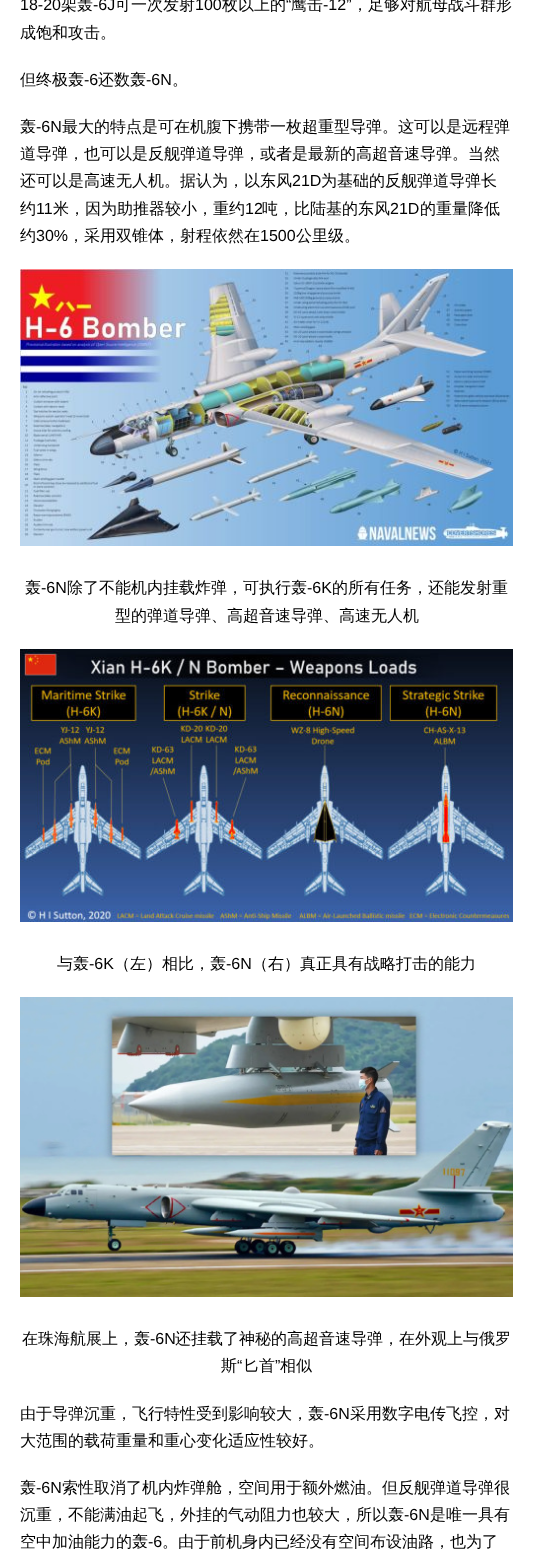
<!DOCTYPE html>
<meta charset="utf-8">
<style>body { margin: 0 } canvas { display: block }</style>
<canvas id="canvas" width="533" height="1550"></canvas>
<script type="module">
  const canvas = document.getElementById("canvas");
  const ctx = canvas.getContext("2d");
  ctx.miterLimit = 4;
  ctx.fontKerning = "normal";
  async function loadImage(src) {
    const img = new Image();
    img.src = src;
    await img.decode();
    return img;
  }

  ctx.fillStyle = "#ffffff";
  ctx.fillRect(0, 0, 533, 1550);
  ctx.font = "16px Liberation Sans";
  ctx.fillStyle = "#000000";
  ctx.fillText("18-20", 20, 10);
  ctx.font = "500 16px WenQuanYi Zen Hei";
  ctx.fillText("架轰", 61, 10);
  ctx.font = "16px Liberation Sans";
  ctx.fillText("-6J", 93, 10);
  ctx.font = "500 16px WenQuanYi Zen Hei";
  ctx.fillText("可一次发射", 115, 10);
  ctx.font = "16px Liberation Sans";
  ctx.fillText("100", 195, 10);
  ctx.font = "500 16px WenQuanYi Zen Hei";
  ctx.fillText("枚以上的", 222, 10);
  ctx.font = "16px Liberation Sans";
  ctx.fillText("“", 286, 10);
  ctx.font = "500 16px WenQuanYi Zen Hei";
  ctx.fillText("鹰击", 291, 10);
  ctx.font = "16px Liberation Sans";
  ctx.fillText("-12”", 323, 10);
  ctx.font = "500 16px WenQuanYi Zen Hei";
  ctx.fillText("，足够对航母战斗群形", 352, 10);
  ctx.fillText("成饱和攻击。", 20, 38);
  ctx.fillText("但终极轰", 20, 85);
  ctx.font = "16px Liberation Sans";
  ctx.fillText("-6", 84, 85);
  ctx.font = "500 16px WenQuanYi Zen Hei";
  ctx.fillText("还数轰", 98, 85);
  ctx.font = "16px Liberation Sans";
  ctx.fillText("-6N", 146, 85);
  ctx.font = "500 16px WenQuanYi Zen Hei";
  ctx.fillText("。", 172, 85);
  ctx.fillText("轰", 20, 132);
  ctx.font = "16px Liberation Sans";
  ctx.fillText("-6N", 36, 132);
  ctx.font = "500 16px WenQuanYi Zen Hei";
  ctx.fillText("最大的特点是可在机腹下携带一枚超重型导弹。这可以是远程弹", 62, 132);
  ctx.fillText("道导弹，也可以是反舰弹道导弹，或者是最新的高超音速导弹。当然", 20, 159);
  ctx.fillText("还可以是高速无人机。据认为，以东风", 20, 186);
  ctx.font = "16px Liberation Sans";
  ctx.fillText("21D", 292, 186);
  ctx.font = "500 16px WenQuanYi Zen Hei";
  ctx.fillText("为基础的反舰弹道导弹长", 321, 186);
  ctx.fillText("约", 20, 214);
  ctx.font = "16px Liberation Sans";
  ctx.fillText("11", 36, 214);
  ctx.font = "500 16px WenQuanYi Zen Hei";
  ctx.fillText("米，因为助推器较小，重约", 53, 214);
  ctx.font = "16px Liberation Sans";
  ctx.fillText("12", 245, 214);
  ctx.font = "500 16px WenQuanYi Zen Hei";
  ctx.fillText("吨，比陆基的东风", 262, 214);
  ctx.font = "16px Liberation Sans";
  ctx.fillText("21D", 390, 214);
  ctx.font = "500 16px WenQuanYi Zen Hei";
  ctx.fillText("的重量降低", 420, 214);
  ctx.fillText("约", 20, 241);
  ctx.font = "16px Liberation Sans";
  ctx.fillText("30%", 36, 241);
  ctx.font = "500 16px WenQuanYi Zen Hei";
  ctx.fillText("，采用双锥体，射程依然在", 68, 241);
  ctx.font = "16px Liberation Sans";
  ctx.fillText("1500", 260, 241);
  ctx.font = "500 16px WenQuanYi Zen Hei";
  ctx.fillText("公里级。", 296, 241);
  ctx.drawImage(await loadImage("img1.png"), 20, 269, 493, 277);
  ctx.fillText("轰", 25, 593);
  ctx.font = "16px Liberation Sans";
  ctx.fillText("-6N", 41, 593);
  ctx.font = "500 16px WenQuanYi Zen Hei";
  ctx.fillText("除了不能机内挂载炸弹，可执行轰", 67, 593);
  ctx.font = "16px Liberation Sans";
  ctx.fillText("-6K", 307, 593);
  ctx.font = "500 16px WenQuanYi Zen Hei";
  ctx.fillText("的所有任务，还能发射重", 332, 593);
  ctx.fillText("型的弹道导弹、高超音速导弹、高速无人机", 115, 621);
  ctx.drawImage(await loadImage("img2.png"), 20, 649, 493, 273);
  ctx.fillText("与轰", 57, 969);
  ctx.font = "16px Liberation Sans";
  ctx.fillText("-6K", 89, 969);
  ctx.font = "500 16px WenQuanYi Zen Hei";
  ctx.fillText("（左）相比，轰", 114, 969);
  ctx.font = "16px Liberation Sans";
  ctx.fillText("-6N", 226, 969);
  ctx.font = "500 16px WenQuanYi Zen Hei";
  ctx.fillText("（右）真正具有战略打击的能力", 252, 969);
  ctx.drawImage(await loadImage("img3.png"), 20, 997, 493, 300);
  ctx.fillText("在珠海航展上，轰", 22, 1344);
  ctx.font = "16px Liberation Sans";
  ctx.fillText("-6N", 150, 1344);
  ctx.font = "500 16px WenQuanYi Zen Hei";
  ctx.fillText("还挂载了神秘的高超音速导弹，在外观上与俄罗", 175, 1344);
  ctx.fillText("斯", 221, 1371);
  ctx.font = "16px Liberation Sans";
  ctx.fillText("“", 237, 1371);
  ctx.font = "500 16px WenQuanYi Zen Hei";
  ctx.fillText("匕首", 243, 1371);
  ctx.font = "16px Liberation Sans";
  ctx.fillText("”", 275, 1371);
  ctx.font = "500 16px WenQuanYi Zen Hei";
  ctx.fillText("相似", 280, 1371);
  ctx.fillText("由于导弹沉重，飞行特性受到影响较大，轰", 20, 1419);
  ctx.font = "16px Liberation Sans";
  ctx.fillText("-6N", 324, 1419);
  ctx.font = "500 16px WenQuanYi Zen Hei";
  ctx.fillText("采用数字电传飞控，对", 350, 1419);
  ctx.fillText("大范围的载荷重量和重心变化适应性较好。", 20, 1446);
  ctx.fillText("轰", 20, 1493);
  ctx.font = "16px Liberation Sans";
  ctx.fillText("-6N", 36, 1493);
  ctx.font = "500 16px WenQuanYi Zen Hei";
  ctx.fillText("索性取消了机内炸弹舱，空间用于额外燃油。但反舰弹道导弹很", 62, 1493);
  ctx.fillText("沉重，不能满油起飞，外挂的气动阻力也较大，所以轰", 20, 1520);
  ctx.font = "16px Liberation Sans";
  ctx.fillText("-6N", 404, 1520);
  ctx.font = "500 16px WenQuanYi Zen Hei";
  ctx.fillText("是唯一具有", 430, 1520);
  ctx.fillText("空中加油能力的轰", 20, 1547);
  ctx.font = "16px Liberation Sans";
  ctx.fillText("-6", 148, 1547);
  ctx.font = "500 16px WenQuanYi Zen Hei";
  ctx.fillText("。由于前机身内已经没有空间布设油路，也为了", 162, 1547);
</script>
